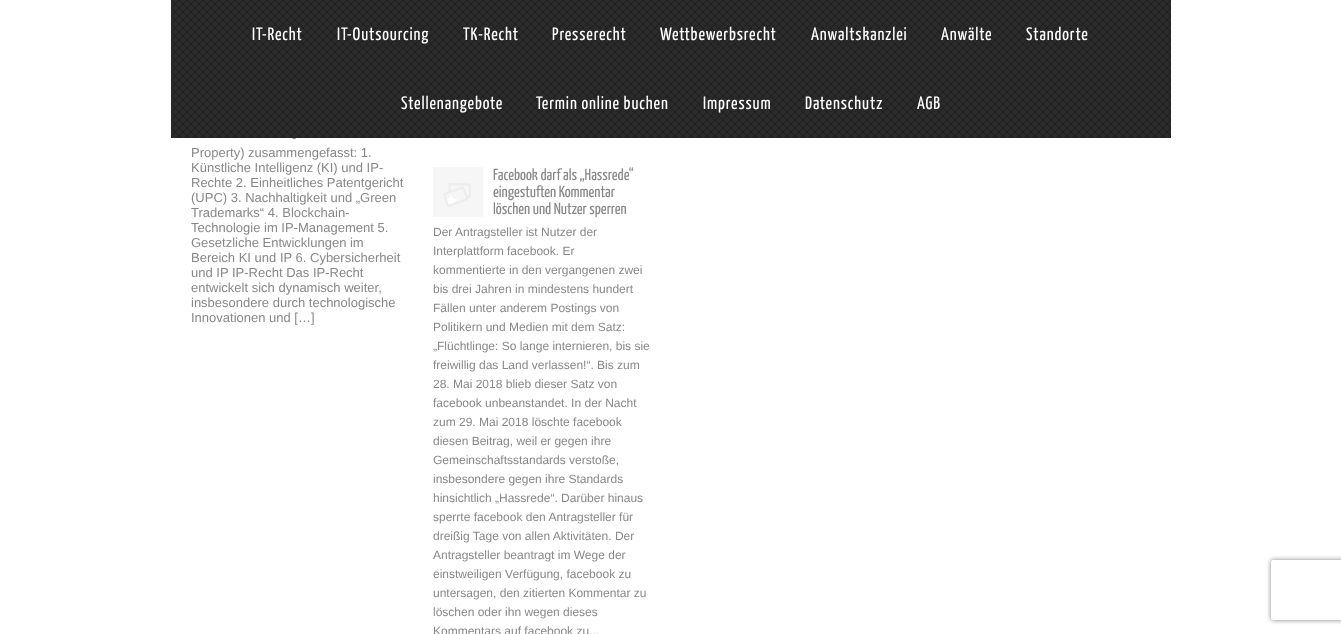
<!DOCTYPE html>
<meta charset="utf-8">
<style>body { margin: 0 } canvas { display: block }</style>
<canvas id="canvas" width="1341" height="634"></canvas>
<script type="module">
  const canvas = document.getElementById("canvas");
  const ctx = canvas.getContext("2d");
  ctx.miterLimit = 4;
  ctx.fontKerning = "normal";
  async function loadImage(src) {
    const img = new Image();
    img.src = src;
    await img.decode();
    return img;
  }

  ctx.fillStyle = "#ffffff";
  ctx.fillRect(0, 0, 1341, 634);
  ctx.fillStyle = "#302f2f";
  ctx.fillRect(171, 0, 1000, 138);
  ctx.drawImage(await loadImage("img1.png"), 171, 0, 1000, 138);
  ctx.letterSpacing = "0.9px";
  ctx.font = "18px Yanone Kaffeesatz";
  ctx.fillStyle = "#ffffff";
  ctx.fillText("IT-Recht", 252, 40);
  ctx.fillText("IT-Outsourcing", 337, 40);
  ctx.fillText("TK-Recht", 463, 40);
  ctx.fillText("Presserecht", 552, 40);
  ctx.fillText("Wettbewerbsrecht", 660, 40);
  ctx.fillText("Anwaltskanzlei", 811, 40);
  ctx.fillText("Anwälte", 941, 40);
  ctx.fillText("Standorte", 1026, 40);
  ctx.fillText("Stellenangebote", 401, 109);
  ctx.fillText("Termin online buchen", 536, 109);
  ctx.fillText("Impressum", 703, 109);
  ctx.fillText("Datenschutz", 805, 109);
  ctx.fillText("AGB", 917, 109);
  ctx.letterSpacing = "0px";
  ctx.font = "13px Liberation Sans";
  ctx.fillStyle = "#888888";
  ctx.fillText("-", 292, 142);
  ctx.fillText("Property) zusammengefasst: 1.", 191, 157);
  ctx.fillText("Künstliche Intelligenz (KI) und IP-", 191, 172);
  ctx.fillText("Rechte 2. Einheitliches Patentgericht", 191, 187);
  ctx.fillText("(UPC) 3. Nachhaltigkeit und „Green", 191, 202);
  ctx.fillText("Trademarks“ 4. Blockchain-", 191, 217);
  ctx.fillText("Technologie im IP-Management 5.", 191, 232);
  ctx.fillText("Gesetzliche Entwicklungen im", 191, 247);
  ctx.fillText("Bereich KI und IP 6. Cybersicherheit", 191, 262);
  ctx.fillText("und IP IP-Recht Das IP-Recht", 191, 277);
  ctx.fillText("entwickelt sich dynamisch weiter,", 191, 292);
  ctx.fillText("insbesondere durch technologische", 191, 307);
  ctx.fillText("Innovationen und […]", 191, 322);
  ctx.font = "16px Yanone Kaffeesatz";
  ctx.fillText("Facebook darf als „Hassrede“", 493, 180);
  ctx.fillText("eingestuften Kommentar", 493, 197);
  ctx.fillText("löschen und Nutzer sperren", 493, 214);
  ctx.font = "12px Liberation Sans";
  ctx.fillText("Der Antragsteller ist Nutzer der", 433, 236);
  ctx.fillText("Interplattform facebook. Er", 433, 255);
  ctx.fillText("kommentierte in den vergangenen zwei", 433, 274);
  ctx.fillText("bis drei Jahren in mindestens hundert", 433, 293);
  ctx.fillText("Fällen unter anderem Postings von", 433, 312);
  ctx.fillText("Politikern und Medien mit dem Satz:", 433, 331);
  ctx.fillText("„Flüchtlinge: So lange internieren, bis sie", 433, 350);
  ctx.fillText("freiwillig das Land verlassen!“. Bis zum", 433, 369);
  ctx.fillText("28. Mai 2018 blieb dieser Satz von", 433, 388);
  ctx.fillText("facebook unbeanstandet. In der Nacht", 433, 407);
  ctx.fillText("zum 29. Mai 2018 löschte facebook", 433, 426);
  ctx.fillText("diesen Beitrag, weil er gegen ihre", 433, 445);
  ctx.fillText("Gemeinschaftsstandards verstoße,", 433, 464);
  ctx.fillText("insbesondere gegen ihre Standards", 433, 483);
  ctx.fillText("hinsichtlich „Hassrede“. Darüber hinaus", 433, 502);
  ctx.fillText("sperrte facebook den Antragsteller für", 433, 521);
  ctx.fillText("dreißig Tage von allen Aktivitäten. Der", 433, 540);
  ctx.fillText("Antragsteller beantragt im Wege der", 433, 559);
  ctx.fillText("einstweiligen Verfügung, facebook zu", 433, 578);
  ctx.fillText("untersagen, den zitierten Kommentar zu", 433, 597);
  ctx.fillText("löschen oder ihn wegen dieses", 433, 616);
  ctx.fillText("Kommentars auf facebook zu...", 433, 635);
  ctx.drawImage(await loadImage("img2.png"), 433, 167, 50, 50);
  ctx.save();
  ctx.beginPath();
  ctx.moveTo(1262, 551);
  ctx.lineTo(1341, 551);
  ctx.lineTo(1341, 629);
  ctx.lineTo(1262, 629);
  ctx.closePath();
  ctx.moveTo(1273, 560);
  ctx.lineTo(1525, 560);
  ctx.bezierCurveTo(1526, 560, 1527, 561, 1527, 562);
  ctx.lineTo(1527, 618);
  ctx.bezierCurveTo(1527, 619, 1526, 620, 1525, 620);
  ctx.lineTo(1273, 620);
  ctx.bezierCurveTo(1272, 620, 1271, 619, 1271, 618);
  ctx.lineTo(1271, 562);
  ctx.bezierCurveTo(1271, 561, 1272, 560, 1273, 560);
  ctx.closePath();
  ctx.clip("evenodd");
  ctx.fillStyle = "#808080";
  ctx.filter = "blur(2.5px)";
  ctx.beginPath();
  ctx.roundRect(1271, 560, 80, 60, 2);
  ctx.fill();
  ctx.filter = "none";
  ctx.restore();
</script>
